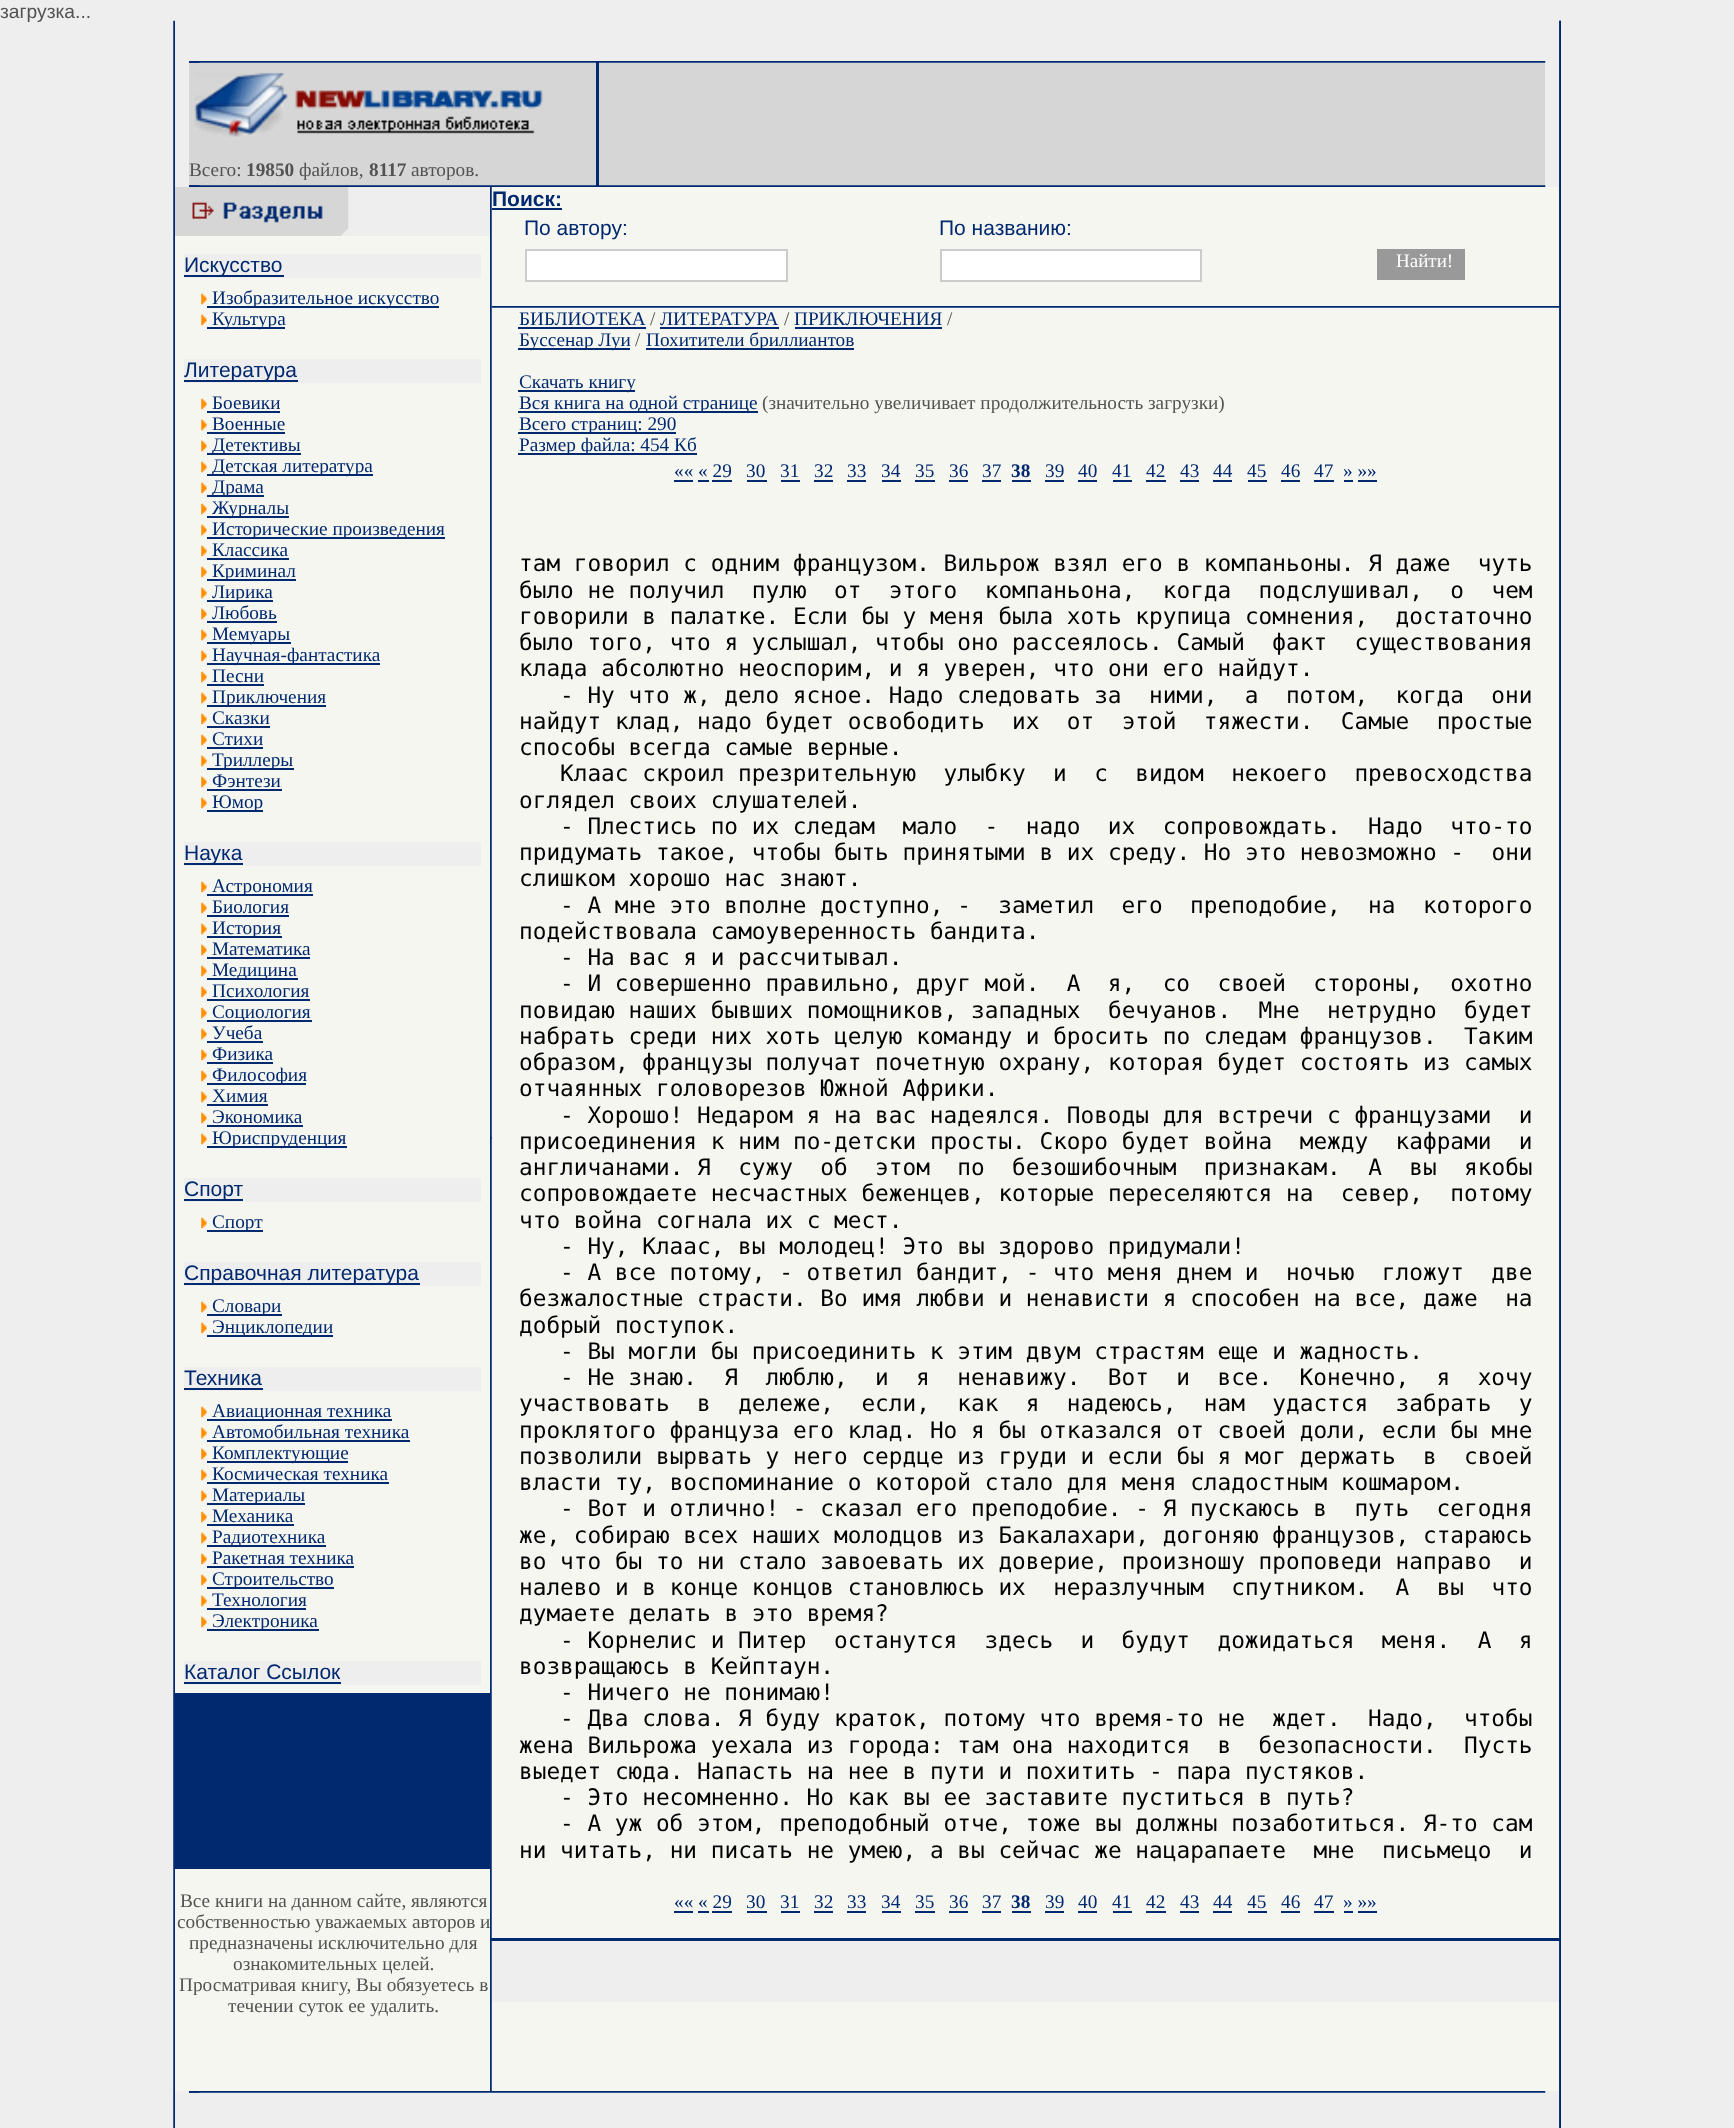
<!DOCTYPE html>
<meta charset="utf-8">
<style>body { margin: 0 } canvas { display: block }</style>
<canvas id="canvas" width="1734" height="2128"></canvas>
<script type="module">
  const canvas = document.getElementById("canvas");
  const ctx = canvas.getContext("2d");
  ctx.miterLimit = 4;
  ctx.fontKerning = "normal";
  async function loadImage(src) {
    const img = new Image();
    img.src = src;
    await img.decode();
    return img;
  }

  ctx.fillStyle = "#eeeeee";
  ctx.fillRect(0, 0, 1734, 2128);
  ctx.font = "19.25px Liberation Sans";
  ctx.fillStyle = "#535353";
  ctx.fillText("загрузка...", 0, 18);
  ctx.drawImage(await loadImage("img1.png"), 173, 20, 2, 2108);
  ctx.drawImage(await loadImage("img2.png"), 189, 61, 1357, 2);
  ctx.drawImage(await loadImage("img3.png"), 189, 62, 11, 1);
  ctx.fillStyle = "#d6d6d6";
  ctx.fillRect(189, 63, 407, 123);
  ctx.drawImage(await loadImage("img4.png"), 194, 72, 349, 65);
  ctx.font = "19.25px Liberation Serif";
  ctx.fillStyle = "#535353";
  ctx.fillText("Всего:", 189, 176);
  ctx.font = "bold 19.25px Liberation Serif";
  ctx.fillText("19850", 246, 176);
  ctx.font = "19.25px Liberation Serif";
  ctx.fillText("файлов,", 299, 176);
  ctx.font = "bold 19.25px Liberation Serif";
  ctx.fillText("8117", 369, 176);
  ctx.font = "19.25px Liberation Serif";
  ctx.fillText("авторов.", 411, 176);
  ctx.fillStyle = "#00296f";
  ctx.fillRect(596, 62, 3, 124);
  ctx.fillStyle = "#d6d6d6";
  ctx.fillRect(599, 63, 946, 123);
  ctx.drawImage(await loadImage("img5.png"), 189, 185, 1357, 2);
  ctx.drawImage(await loadImage("img6.png"), 189, 185, 11, 1);
  ctx.fillStyle = "#f6f6f0";
  ctx.fillRect(175, 187, 1384, 1904);
  ctx.fillStyle = "#eeeeee";
  ctx.fillRect(348, 187, 142, 49);
  ctx.drawImage(await loadImage("img7.png"), 175, 187, 174, 49);
  ctx.fillRect(184, 254, 297, 24);
  ctx.fillStyle = "#00296f";
  ctx.fillRect(184, 275, 100, 2);
  ctx.font = "21px Liberation Sans";
  ctx.fillText("Искусство", 184, 272);
  ctx.drawImage(await loadImage("img8.png"), 201, 293, 6, 12);
  ctx.fillRect(207, 306, 232, 2);
  ctx.font = "19.25px Liberation Serif";
  ctx.fillText("Изобразительное искусство", 212, 304);
  ctx.drawImage(await loadImage("img8.png"), 201, 314, 6, 12);
  ctx.fillRect(207, 327, 78, 2);
  ctx.fillText("Культура", 212, 325);
  ctx.fillStyle = "#eeeeee";
  ctx.fillRect(184, 359, 297, 24);
  ctx.fillStyle = "#00296f";
  ctx.fillRect(184, 380, 114, 2);
  ctx.font = "21px Liberation Sans";
  ctx.fillText("Литература", 184, 377);
  ctx.drawImage(await loadImage("img8.png"), 201, 398, 6, 12);
  ctx.font = "19.25px Liberation Serif";
  ctx.fillText("Боевики", 212, 409);
  ctx.fillRect(207, 411, 73, 2);
  ctx.drawImage(await loadImage("img8.png"), 201, 419, 6, 12);
  ctx.fillText("Военные", 212, 430);
  ctx.fillRect(207, 432, 78, 2);
  ctx.drawImage(await loadImage("img8.png"), 201, 440, 6, 12);
  ctx.fillRect(207, 453, 94, 2);
  ctx.fillText("Детективы", 212, 451);
  ctx.drawImage(await loadImage("img8.png"), 201, 461, 6, 12);
  ctx.fillRect(207, 474, 166, 2);
  ctx.fillText("Детская литература", 212, 472);
  ctx.drawImage(await loadImage("img8.png"), 201, 482, 6, 12);
  ctx.fillRect(207, 495, 57, 2);
  ctx.fillText("Драма", 212, 493);
  ctx.drawImage(await loadImage("img8.png"), 201, 503, 6, 12);
  ctx.fillRect(207, 516, 82, 2);
  ctx.fillText("Журналы", 212, 514);
  ctx.drawImage(await loadImage("img8.png"), 201, 524, 6, 12);
  ctx.fillRect(207, 537, 238, 2);
  ctx.fillText("Исторические произведения", 212, 535);
  ctx.drawImage(await loadImage("img8.png"), 201, 545, 6, 12);
  ctx.fillText("Классика", 212, 556);
  ctx.fillRect(207, 558, 82, 2);
  ctx.drawImage(await loadImage("img8.png"), 201, 566, 6, 12);
  ctx.fillRect(207, 579, 89, 2);
  ctx.fillText("Криминал", 212, 577);
  ctx.drawImage(await loadImage("img8.png"), 201, 587, 6, 12);
  ctx.fillRect(207, 600, 66, 2);
  ctx.fillText("Лирика", 212, 598);
  ctx.drawImage(await loadImage("img8.png"), 201, 608, 6, 12);
  ctx.fillText("Любовь", 212, 619);
  ctx.fillRect(207, 621, 70, 2);
  ctx.drawImage(await loadImage("img8.png"), 201, 629, 6, 12);
  ctx.fillRect(207, 642, 84, 2);
  ctx.fillText("Мемуары", 212, 640);
  ctx.drawImage(await loadImage("img8.png"), 201, 650, 6, 12);
  ctx.fillRect(207, 663, 173, 2);
  ctx.fillText("Научная-фантастика", 212, 661);
  ctx.drawImage(await loadImage("img8.png"), 201, 671, 6, 12);
  ctx.fillText("Песни", 212, 682);
  ctx.fillRect(207, 684, 57, 2);
  ctx.drawImage(await loadImage("img8.png"), 201, 692, 6, 12);
  ctx.fillRect(207, 705, 119, 2);
  ctx.fillText("Приключения", 212, 703);
  ctx.drawImage(await loadImage("img8.png"), 201, 713, 6, 12);
  ctx.fillText("Сказки", 212, 724);
  ctx.fillRect(207, 726, 63, 2);
  ctx.drawImage(await loadImage("img8.png"), 201, 734, 6, 12);
  ctx.fillText("Стихи", 212, 745);
  ctx.fillRect(207, 747, 56, 2);
  ctx.drawImage(await loadImage("img8.png"), 201, 755, 6, 12);
  ctx.fillRect(207, 768, 87, 2);
  ctx.fillText("Триллеры", 212, 766);
  ctx.drawImage(await loadImage("img8.png"), 201, 776, 6, 12);
  ctx.fillText("Фэнтези", 212, 787);
  ctx.fillRect(207, 789, 75, 2);
  ctx.drawImage(await loadImage("img8.png"), 201, 797, 6, 12);
  ctx.fillRect(207, 810, 56, 2);
  ctx.fillText("Юмор", 212, 808);
  ctx.fillStyle = "#eeeeee";
  ctx.fillRect(184, 842, 297, 24);
  ctx.fillStyle = "#00296f";
  ctx.fillRect(184, 863, 59, 2);
  ctx.font = "21px Liberation Sans";
  ctx.fillText("Наука", 184, 860);
  ctx.drawImage(await loadImage("img8.png"), 201, 881, 6, 12);
  ctx.fillRect(207, 894, 106, 2);
  ctx.font = "19.25px Liberation Serif";
  ctx.fillText("Астрономия", 212, 892);
  ctx.drawImage(await loadImage("img8.png"), 201, 902, 6, 12);
  ctx.fillText("Биология", 212, 913);
  ctx.fillRect(207, 915, 82, 2);
  ctx.drawImage(await loadImage("img8.png"), 201, 923, 6, 12);
  ctx.fillRect(207, 936, 75, 2);
  ctx.fillText("История", 212, 934);
  ctx.drawImage(await loadImage("img8.png"), 201, 944, 6, 12);
  ctx.fillText("Математика", 212, 955);
  ctx.fillRect(207, 957, 103, 2);
  ctx.drawImage(await loadImage("img8.png"), 201, 965, 6, 12);
  ctx.fillRect(207, 978, 91, 2);
  ctx.fillText("Медицина", 212, 976);
  ctx.drawImage(await loadImage("img8.png"), 201, 986, 6, 12);
  ctx.fillText("Психология", 212, 997);
  ctx.fillRect(207, 999, 103, 2);
  ctx.drawImage(await loadImage("img8.png"), 201, 1007, 6, 12);
  ctx.fillRect(207, 1020, 105, 2);
  ctx.fillText("Социология", 212, 1018);
  ctx.drawImage(await loadImage("img8.png"), 201, 1028, 6, 12);
  ctx.fillText("Учеба", 212, 1039);
  ctx.fillRect(207, 1041, 56, 2);
  ctx.drawImage(await loadImage("img8.png"), 201, 1049, 6, 12);
  ctx.fillText("Физика", 212, 1060);
  ctx.fillRect(207, 1062, 66, 2);
  ctx.drawImage(await loadImage("img8.png"), 201, 1070, 6, 12);
  ctx.fillRect(207, 1083, 99, 2);
  ctx.fillText("Философия", 212, 1081);
  ctx.drawImage(await loadImage("img8.png"), 201, 1091, 6, 12);
  ctx.fillText("Химия", 212, 1102);
  ctx.fillRect(207, 1104, 61, 2);
  ctx.drawImage(await loadImage("img8.png"), 201, 1112, 6, 12);
  ctx.fillText("Экономика", 212, 1123);
  ctx.fillRect(207, 1125, 96, 2);
  ctx.drawImage(await loadImage("img8.png"), 201, 1133, 6, 12);
  ctx.fillRect(207, 1146, 140, 2);
  ctx.fillText("Юриспруденция", 212, 1144);
  ctx.fillStyle = "#eeeeee";
  ctx.fillRect(184, 1178, 297, 24);
  ctx.fillStyle = "#00296f";
  ctx.fillRect(184, 1199, 59, 2);
  ctx.font = "21px Liberation Sans";
  ctx.fillText("Спорт", 184, 1196);
  ctx.drawImage(await loadImage("img8.png"), 201, 1217, 6, 12);
  ctx.fillRect(207, 1230, 56, 2);
  ctx.font = "19.25px Liberation Serif";
  ctx.fillText("Спорт", 212, 1228);
  ctx.fillStyle = "#eeeeee";
  ctx.fillRect(184, 1262, 297, 24);
  ctx.fillStyle = "#00296f";
  ctx.fillRect(184, 1283, 236, 2);
  ctx.font = "21px Liberation Sans";
  ctx.fillText("Справочная литература", 184, 1280);
  ctx.drawImage(await loadImage("img8.png"), 201, 1301, 6, 12);
  ctx.fillRect(207, 1314, 75, 2);
  ctx.font = "19.25px Liberation Serif";
  ctx.fillText("Словари", 212, 1312);
  ctx.drawImage(await loadImage("img8.png"), 201, 1322, 6, 12);
  ctx.fillRect(207, 1335, 126, 2);
  ctx.fillText("Энциклопедии", 212, 1333);
  ctx.fillStyle = "#eeeeee";
  ctx.fillRect(184, 1367, 297, 24);
  ctx.font = "21px Liberation Sans";
  ctx.fillStyle = "#00296f";
  ctx.fillText("Техника", 184, 1385);
  ctx.fillRect(184, 1388, 79, 2);
  ctx.drawImage(await loadImage("img8.png"), 201, 1406, 6, 12);
  ctx.fillRect(207, 1419, 185, 2);
  ctx.font = "19.25px Liberation Serif";
  ctx.fillText("Авиационная техника", 212, 1417);
  ctx.drawImage(await loadImage("img8.png"), 201, 1427, 6, 12);
  ctx.fillText("Автомобильная техника", 212, 1438);
  ctx.fillRect(207, 1440, 203, 2);
  ctx.drawImage(await loadImage("img8.png"), 201, 1448, 6, 12);
  ctx.fillRect(207, 1461, 141, 2);
  ctx.fillText("Комплектующие", 212, 1459);
  ctx.drawImage(await loadImage("img8.png"), 201, 1469, 6, 12);
  ctx.fillText("Космическая техника", 212, 1480);
  ctx.fillRect(207, 1482, 182, 2);
  ctx.drawImage(await loadImage("img8.png"), 201, 1490, 6, 12);
  ctx.fillRect(207, 1503, 98, 2);
  ctx.fillText("Материалы", 212, 1501);
  ctx.drawImage(await loadImage("img8.png"), 201, 1511, 6, 12);
  ctx.fillText("Механика", 212, 1522);
  ctx.fillRect(207, 1524, 87, 2);
  ctx.drawImage(await loadImage("img8.png"), 201, 1532, 6, 12);
  ctx.fillRect(207, 1545, 119, 2);
  ctx.fillText("Радиотехника", 212, 1543);
  ctx.drawImage(await loadImage("img8.png"), 201, 1553, 6, 12);
  ctx.fillText("Ракетная техника", 212, 1564);
  ctx.fillRect(207, 1566, 147, 2);
  ctx.drawImage(await loadImage("img8.png"), 201, 1574, 6, 12);
  ctx.fillRect(207, 1587, 127, 2);
  ctx.fillText("Строительство", 212, 1585);
  ctx.drawImage(await loadImage("img8.png"), 201, 1595, 6, 12);
  ctx.fillText("Технология", 212, 1606);
  ctx.fillRect(207, 1608, 99, 2);
  ctx.drawImage(await loadImage("img8.png"), 201, 1616, 6, 12);
  ctx.fillRect(207, 1629, 112, 2);
  ctx.fillText("Электроника", 212, 1627);
  ctx.fillStyle = "#eeeeee";
  ctx.fillRect(184, 1661, 297, 24);
  ctx.font = "21px Liberation Sans";
  ctx.fillStyle = "#00296f";
  ctx.fillText("Каталог Ссылок", 184, 1679);
  ctx.fillRect(184, 1682, 157, 2);
  ctx.fillRect(175, 1693, 315, 176);
  ctx.font = "19.25px Liberation Serif";
  ctx.fillStyle = "#535353";
  ctx.fillText("Все книги на данном сайте, являются", 180, 1907);
  ctx.fillText("собственностью уважаемых авторов и", 177, 1928);
  ctx.fillText("предназначены исключительно для", 189, 1949);
  ctx.fillText("ознакомительных целей.", 233, 1970);
  ctx.fillText("Просматривая книгу, Вы обязуетесь в", 179, 1991);
  ctx.fillText("течении суток ее удалить.", 228, 2012);
  ctx.drawImage(await loadImage("img9.png"), 490, 187, 2, 1904);
  ctx.drawImage(await loadImage("img10.png"), 491, 1137, 1, 2);
  ctx.font = "bold 21px Liberation Sans";
  ctx.fillStyle = "#00296f";
  ctx.fillText("Поиск:", 492, 206);
  ctx.fillRect(492, 208, 70, 2);
  ctx.font = "21px Liberation Sans";
  ctx.fillText("По автору:", 524, 235);
  ctx.fillText("По названию:", 939, 235);
  ctx.fillStyle = "#ffffff";
  ctx.beginPath();
  ctx.rect(526, 250, 261, 31);
  ctx.fill();
  ctx.strokeStyle = "#cccccc";
  ctx.lineWidth = 2;
  ctx.stroke();
  ctx.beginPath();
  ctx.rect(941, 250, 260, 31);
  ctx.fill();
  ctx.stroke();
  ctx.fillStyle = "#999999";
  ctx.fillRect(1377, 249, 88, 31);
  ctx.font = "19px Liberation Serif";
  ctx.fillStyle = "#ffffff";
  ctx.fillText("Найти!", 1396, 267);
  ctx.drawImage(await loadImage("img11.png"), 491, 306, 1069, 2);
  ctx.font = "19.25px Liberation Serif";
  ctx.fillStyle = "#00296f";
  ctx.fillText("БИБЛИОТЕКА", 519, 325);
  ctx.fillRect(518, 327, 128, 2);
  ctx.fillStyle = "#535353";
  ctx.fillText("/", 650, 325);
  ctx.fillStyle = "#00296f";
  ctx.fillText("ЛИТЕРАТУРА", 660, 325);
  ctx.fillRect(660, 327, 119, 2);
  ctx.fillStyle = "#535353";
  ctx.fillText("/", 784, 325);
  ctx.fillStyle = "#00296f";
  ctx.fillText("ПРИКЛЮЧЕНИЯ", 794, 325);
  ctx.fillRect(795, 327, 147, 2);
  ctx.fillStyle = "#535353";
  ctx.fillText("/", 947, 325);
  ctx.fillStyle = "#00296f";
  ctx.fillRect(518, 348, 112, 2);
  ctx.fillText("Буссенар Луи", 519, 346);
  ctx.fillStyle = "#535353";
  ctx.fillText("/", 635, 346);
  ctx.fillStyle = "#00296f";
  ctx.fillRect(646, 348, 208, 2);
  ctx.fillText("Похитители бриллиантов", 646, 346);
  ctx.fillRect(518, 390, 117, 2);
  ctx.fillText("Скачать книгу", 519, 388);
  ctx.fillRect(518, 411, 240, 2);
  ctx.fillText("Вся книга на одной странице", 519, 409);
  ctx.fillStyle = "#535353";
  ctx.fillText("(значительно увеличивает продолжительность загрузки)", 762, 409);
  ctx.fillStyle = "#00296f";
  ctx.fillRect(518, 432, 158, 2);
  ctx.fillText("Всего страниц: 290", 519, 430);
  ctx.fillRect(518, 453, 179, 2);
  ctx.fillText("Размер файла: 454 Кб", 519, 451);
  ctx.fillText("«« « 29", 674, 477);
  ctx.fillRect(674, 480, 19, 2);
  ctx.fillText("30", 746, 477);
  ctx.fillRect(747, 480, 20, 2);
  ctx.fillText("31", 780, 477);
  ctx.fillRect(781, 480, 19, 2);
  ctx.fillText("32", 814, 477);
  ctx.fillRect(814, 480, 19, 2);
  ctx.fillText("33", 847, 477);
  ctx.fillRect(847, 480, 19, 2);
  ctx.fillText("34", 881, 477);
  ctx.fillRect(882, 480, 19, 2);
  ctx.fillText("35", 915, 477);
  ctx.fillRect(915, 480, 20, 2);
  ctx.fillText("36", 949, 477);
  ctx.fillRect(949, 480, 19, 2);
  ctx.fillText("37", 982, 477);
  ctx.fillRect(982, 480, 19, 2);
  ctx.font = "bold 19.25px Liberation Serif";
  ctx.fillText("38", 1011, 477);
  ctx.fillRect(1012, 480, 19, 2);
  ctx.font = "19.25px Liberation Serif";
  ctx.fillText("39", 1045, 477);
  ctx.fillRect(1045, 480, 19, 2);
  ctx.fillText("40", 1078, 477);
  ctx.fillRect(1078, 480, 19, 2);
  ctx.fillText("41", 1112, 477);
  ctx.fillRect(1113, 480, 19, 2);
  ctx.fillText("42", 1146, 477);
  ctx.fillRect(1146, 480, 20, 2);
  ctx.fillText("43", 1180, 477);
  ctx.fillRect(1180, 480, 19, 2);
  ctx.fillText("44", 1213, 477);
  ctx.fillRect(1213, 480, 19, 2);
  ctx.fillText("45", 1247, 477);
  ctx.fillRect(1248, 480, 19, 2);
  ctx.fillText("46", 1281, 477);
  ctx.fillRect(1281, 480, 19, 2);
  ctx.fillText("47", 1314, 477);
  ctx.fillRect(1314, 480, 20, 2);
  ctx.fillText("» »»", 1343, 477);
  ctx.fillRect(1344, 480, 9, 2);
  ctx.fillRect(698, 480, 11, 2);
  ctx.fillRect(712, 480, 20, 2);
  ctx.fillRect(1358, 480, 19, 2);
  ctx.font = "22.75px DejaVu Sans Mono";
  ctx.fillStyle = "#000000";
  ctx.fillText("там говорил с одним французом. Вильрож взял его в компаньоны. Я даже  чуть", 519, 571);
  ctx.fillText("было не получил  пулю  от  этого  компаньона,  когда  подслушивал,  о  чем", 519, 598);
  ctx.fillText("говорили в палатке. Если бы у меня была хоть крупица сомнения,  достаточно", 519, 624);
  ctx.fillText("было того, что я услышал, чтобы оно рассеялось. Самый  факт  существования", 519, 650);
  ctx.fillText("клада абсолютно неоспорим, и я уверен, что они его найдут.", 519, 676);
  ctx.fillText("- Ну что ж, дело ясное. Надо следовать за  ними,  а  потом,  когда  они", 560, 703);
  ctx.fillText("найдут клад, надо будет освободить  их  от  этой  тяжести.  Самые  простые", 519, 729);
  ctx.fillText("способы всегда самые верные.", 519, 755);
  ctx.fillText("Клаас скроил презрительную  улыбку  и  с  видом  некоего  превосходства", 560, 781);
  ctx.fillText("оглядел своих слушателей.", 519, 808);
  ctx.fillText("- Плестись по их следам  мало  -  надо  их  сопровождать.  Надо  что-то", 560, 834);
  ctx.fillText("придумать такое, чтобы быть принятыми в их среду. Но это невозможно -  они", 519, 860);
  ctx.fillText("слишком хорошо нас знают.", 519, 886);
  ctx.fillText("- А мне это вполне доступно, -  заметил  его  преподобие,  на  которого", 560, 913);
  ctx.fillText("подействовала самоуверенность бандита.", 519, 939);
  ctx.fillText("- На вас я и рассчитывал.", 560, 965);
  ctx.fillText("- И совершенно правильно, друг мой.  А  я,  со  своей  стороны,  охотно", 560, 991);
  ctx.fillText("повидаю наших бывших помощников, западных  бечуанов.  Мне  нетрудно  будет", 519, 1018);
  ctx.fillText("набрать среди них хоть целую команду и бросить по следам французов.  Таким", 519, 1044);
  ctx.fillText("образом, французы получат почетную охрану, которая будет состоять из самых", 519, 1070);
  ctx.fillText("отчаянных головорезов Южной Африки.", 519, 1096);
  ctx.fillText("- Хорошо! Недаром я на вас надеялся. Поводы для встречи с французами  и", 560, 1123);
  ctx.fillText("присоединения к ним по-детски просты. Скоро будет война  между  кафрами  и", 519, 1149);
  ctx.fillText("англичанами. Я  сужу  об  этом  по  безошибочным  признакам.  А  вы  якобы", 519, 1175);
  ctx.fillText("сопровождаете несчастных беженцев, которые переселяются на  север,  потому", 519, 1201);
  ctx.fillText("что война согнала их с мест.", 519, 1228);
  ctx.fillText("- Ну, Клаас, вы молодец! Это вы здорово придумали!", 560, 1254);
  ctx.fillText("- А все потому, - ответил бандит, - что меня днем и  ночью  гложут  две", 560, 1280);
  ctx.fillText("безжалостные страсти. Во имя любви и ненависти я способен на все, даже  на", 519, 1306);
  ctx.fillText("добрый поступок.", 519, 1333);
  ctx.fillText("- Вы могли бы присоединить к этим двум страстям еще и жадность.", 560, 1359);
  ctx.fillText("- Не знаю.  Я  люблю,  и  я  ненавижу.  Вот  и  все.  Конечно,  я  хочу", 560, 1385);
  ctx.fillText("участвовать  в  дележе,  если,  как  я  надеюсь,  нам  удастся  забрать  у", 519, 1411);
  ctx.fillText("проклятого француза его клад. Но я бы отказался от своей доли, если бы мне", 519, 1438);
  ctx.fillText("позволили вырвать у него сердце из груди и если бы я мог держать  в  своей", 519, 1464);
  ctx.fillText("власти ту, воспоминание о которой стало для меня сладостным кошмаром.", 519, 1490);
  ctx.fillText("- Вот и отлично! - сказал его преподобие. - Я пускаюсь в  путь  сегодня", 560, 1516);
  ctx.fillText("же, собираю всех наших молодцов из Бакалахари, догоняю французов, стараюсь", 519, 1543);
  ctx.fillText("во что бы то ни стало завоевать их доверие, произношу проповеди направо  и", 519, 1569);
  ctx.fillText("налево и в конце концов становлюсь их  неразлучным  спутником.  А  вы  что", 519, 1595);
  ctx.fillText("думаете делать в это время?", 519, 1621);
  ctx.fillText("- Корнелис и Питер  останутся  здесь  и  будут  дожидаться  меня.  А  я", 560, 1648);
  ctx.fillText("возвращаюсь в Кейптаун.", 519, 1674);
  ctx.fillText("- Ничего не понимаю!", 560, 1700);
  ctx.fillText("- Два слова. Я буду краток, потому что время-то не  ждет.  Надо,  чтобы", 560, 1726);
  ctx.fillText("жена Вильрожа уехала из города: там она находится  в  безопасности.  Пусть", 519, 1753);
  ctx.fillText("выедет сюда. Напасть на нее в пути и похитить - пара пустяков.", 519, 1779);
  ctx.fillText("- Это несомненно. Но как вы ее заставите пуститься в путь?", 560, 1805);
  ctx.fillText("- А уж об этом, преподобный отче, тоже вы должны позаботиться. Я-то сам", 560, 1831);
  ctx.fillText("ни читать, ни писать не умею, а вы сейчас же нацарапаете  мне  письмецо  и", 519, 1858);
  ctx.font = "19.25px Liberation Serif";
  ctx.fillStyle = "#00296f";
  ctx.fillText("«« « 29", 674, 1908);
  ctx.fillRect(674, 1911, 19, 2);
  ctx.fillText("30", 746, 1908);
  ctx.fillRect(747, 1911, 20, 2);
  ctx.fillText("31", 780, 1908);
  ctx.fillRect(781, 1911, 19, 2);
  ctx.fillText("32", 814, 1908);
  ctx.fillRect(814, 1911, 19, 2);
  ctx.fillText("33", 847, 1908);
  ctx.fillRect(847, 1911, 19, 2);
  ctx.fillText("34", 881, 1908);
  ctx.fillRect(882, 1911, 19, 2);
  ctx.fillText("35", 915, 1908);
  ctx.fillRect(915, 1911, 20, 2);
  ctx.fillText("36", 949, 1908);
  ctx.fillRect(949, 1911, 19, 2);
  ctx.fillText("37", 982, 1908);
  ctx.fillRect(982, 1911, 19, 2);
  ctx.font = "bold 19.25px Liberation Serif";
  ctx.fillText("38", 1011, 1908);
  ctx.fillRect(1012, 1911, 19, 2);
  ctx.font = "19.25px Liberation Serif";
  ctx.fillText("39", 1045, 1908);
  ctx.fillRect(1045, 1911, 19, 2);
  ctx.fillText("40", 1078, 1908);
  ctx.fillRect(1078, 1911, 19, 2);
  ctx.fillText("41", 1112, 1908);
  ctx.fillRect(1113, 1911, 19, 2);
  ctx.fillText("42", 1146, 1908);
  ctx.fillRect(1146, 1911, 20, 2);
  ctx.fillText("43", 1180, 1908);
  ctx.fillRect(1180, 1911, 19, 2);
  ctx.fillText("44", 1213, 1908);
  ctx.fillRect(1213, 1911, 19, 2);
  ctx.fillText("45", 1247, 1908);
  ctx.fillRect(1248, 1911, 19, 2);
  ctx.fillText("46", 1281, 1908);
  ctx.fillRect(1281, 1911, 19, 2);
  ctx.fillText("47", 1314, 1908);
  ctx.fillRect(1314, 1911, 20, 2);
  ctx.fillText("» »»", 1343, 1908);
  ctx.fillRect(1344, 1911, 9, 2);
  ctx.fillRect(698, 1911, 11, 2);
  ctx.fillRect(712, 1911, 20, 2);
  ctx.fillRect(1358, 1911, 19, 2);
  ctx.fillRect(491, 1938, 1069, 3);
  ctx.fillStyle = "#eeeeee";
  ctx.fillRect(492, 1941, 1067, 61);
  ctx.drawImage(await loadImage("img2.png"), 189, 2091, 1357, 2);
  ctx.drawImage(await loadImage("img3.png"), 189, 2092, 11, 1);
  ctx.drawImage(await loadImage("img12.png"), 1559, 20, 2, 2108);
  ctx.drawImage(await loadImage("img13.png"), 1559, 20, 2, 2108);
</script>
